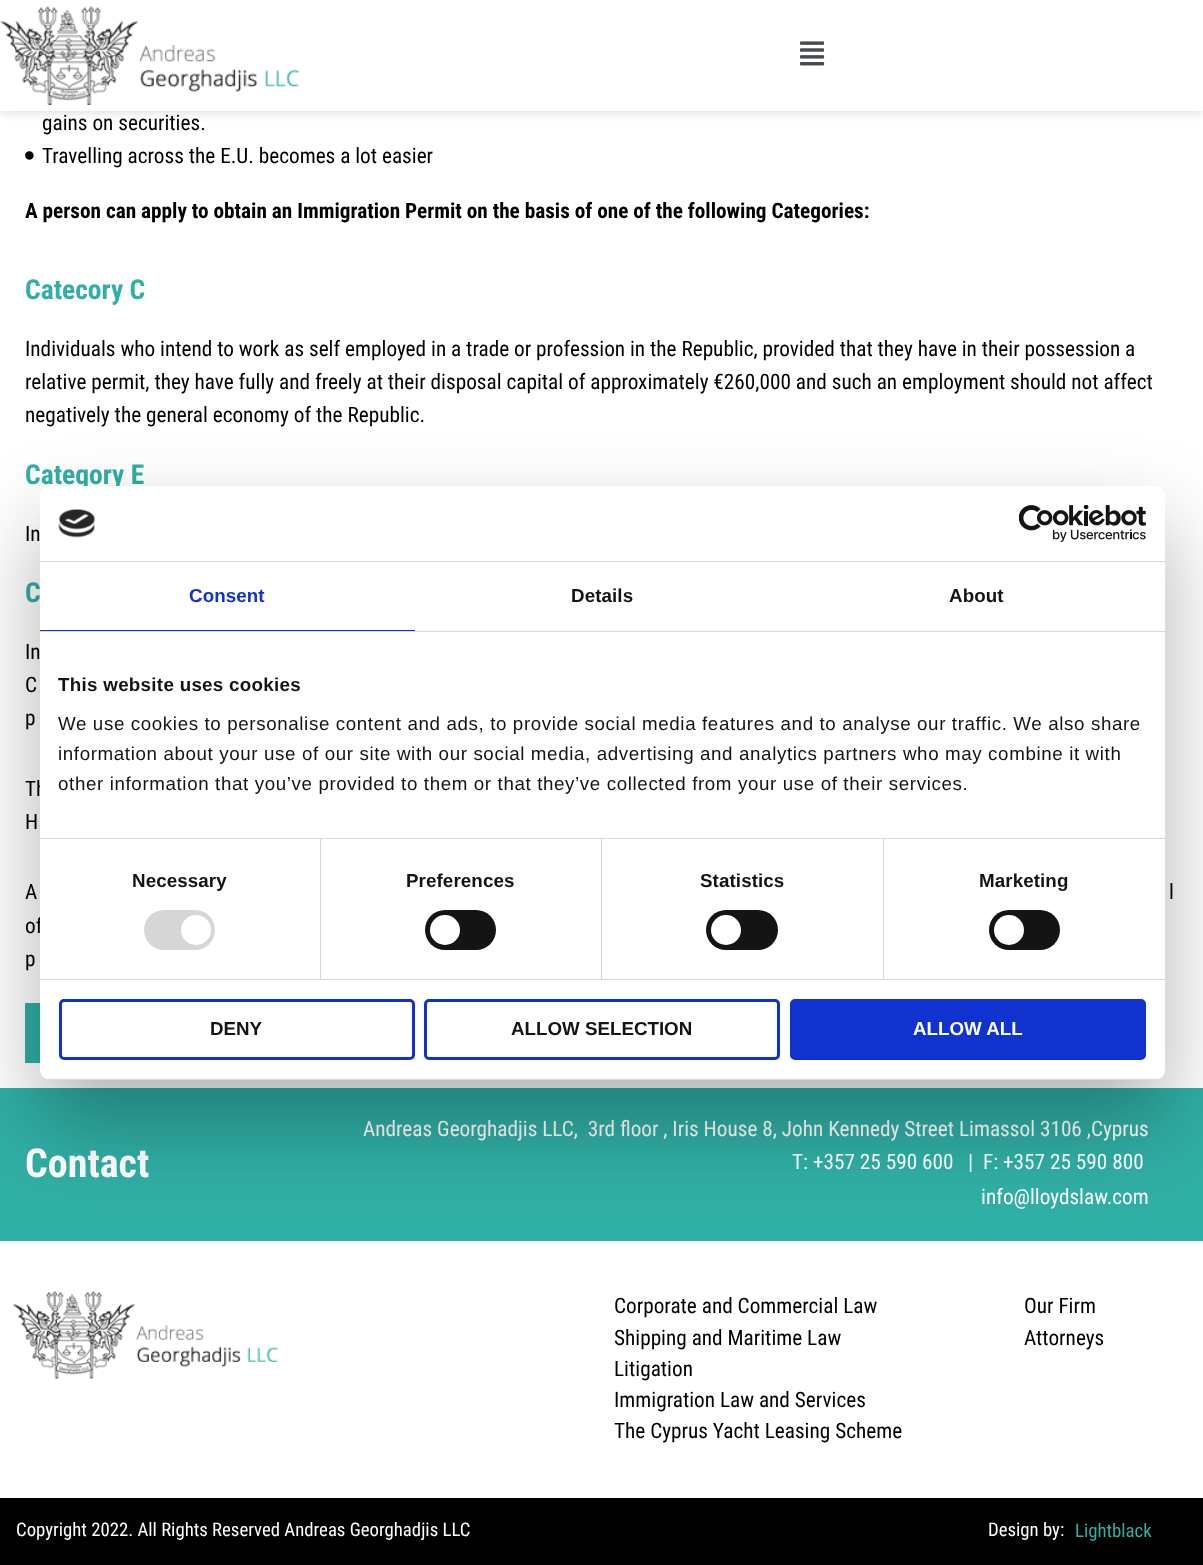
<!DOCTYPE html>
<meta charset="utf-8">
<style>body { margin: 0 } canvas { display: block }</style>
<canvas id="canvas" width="1203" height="1565"></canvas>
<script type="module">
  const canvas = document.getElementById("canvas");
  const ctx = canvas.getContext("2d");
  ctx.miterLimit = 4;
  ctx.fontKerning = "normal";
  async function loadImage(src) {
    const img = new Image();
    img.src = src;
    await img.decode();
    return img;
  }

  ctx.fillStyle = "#ffffff";
  ctx.fillRect(0, 0, 1203, 1565);
  ctx.fillStyle = "rgba(0, 0, 0, 0.17)";
  ctx.filter = "blur(6px)";
  ctx.beginPath();
  ctx.rect(0, 0, 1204, 111);
  ctx.fill();
  ctx.filter = "none";
  ctx.fillStyle = "#ffffff";
  ctx.fillRect(0, 0, 1203, 111);
  ctx.drawImage(await loadImage("img1.png"), 0, 6, 299, 99);
  ctx.drawImage(await loadImage("img2.png"), 800, 41, 25, 25);
  ctx.font = "21.25px Roboto Condensed";
  ctx.fillStyle = "#000000";
  ctx.fillText("gains on securities.", 42, 130);
  ctx.drawImage(await loadImage("img3.png"), 25, 151, 9, 9);
  ctx.fillText("Travelling across the E.U. becomes a lot easier", 42, 163);
  ctx.font = "bold 21.25px Roboto Condensed";
  ctx.fillText("A person can apply to obtain an Immigration Permit on the basis of one of the following Categories:", 25, 218);
  ctx.font = "bold 27.5px Roboto Condensed";
  ctx.fillStyle = "#30afa5";
  ctx.fillText("Catecory C", 25, 299);
  ctx.font = "21.25px Roboto Condensed";
  ctx.fillStyle = "#000000";
  ctx.fillText("Individuals who intend to work as self employed in a trade or profession in the Republic, provided that they have in their possession a", 25, 356);
  ctx.fillText("relative permit, they have fully and freely at their disposal capital of approximately €260,000 and such an employment should not affect", 25, 389);
  ctx.fillText("negatively the general economy of the Republic.", 25, 422);
  ctx.font = "bold 27.5px Roboto Condensed";
  ctx.fillStyle = "#30afa5";
  ctx.fillText("Category E", 25, 484);
  ctx.font = "21.25px Roboto Condensed";
  ctx.fillStyle = "#000000";
  ctx.fillText("In", 25, 541);
  ctx.font = "bold 27.5px Roboto Condensed";
  ctx.fillStyle = "#30afa5";
  ctx.fillText("C", 25, 602);
  ctx.font = "21.25px Roboto Condensed";
  ctx.fillStyle = "#000000";
  ctx.fillText("In", 25, 659);
  ctx.fillText("C", 25, 692);
  ctx.fillText("p", 25, 725);
  ctx.fillText("Th", 25, 796);
  ctx.fillText("H", 25, 829);
  ctx.fillText("A", 25, 899);
  ctx.fillText("l", 1169, 899);
  ctx.fillText("of", 25, 933);
  ctx.fillText("p", 25, 966);
  ctx.fillStyle = "#30afa5";
  ctx.fillRect(25, 1003, 15, 60);
  ctx.fillRect(0, 1088, 1203, 153);
  ctx.font = "bold 40px Roboto Condensed";
  ctx.fillStyle = "#ffffff";
  ctx.fillText("Contact", 25, 1177);
  ctx.font = "21.25px Roboto Condensed";
  ctx.fillText("Andreas Georghadjis LLC,  3rd floor , Iris House 8, John Kennedy Street Limassol 3106 ,Cyprus", 363, 1136);
  ctx.fillText("T: +357 25 590 600   |", 792, 1169);
  ctx.fillText("F: +357 25 590 800", 983, 1169);
  ctx.fillText("info@lloydslaw.com", 981, 1204);
  ctx.drawImage(await loadImage("img4.png"), 12, 1291, 266, 88);
  ctx.fillStyle = "#000000";
  ctx.fillText("Corporate and Commercial Law", 614, 1313);
  ctx.fillText("Shipping and Maritime Law", 614, 1345);
  ctx.fillText("Litigation", 614, 1376);
  ctx.fillText("Immigration Law and Services", 614, 1407);
  ctx.fillText("The Cyprus Yacht Leasing Scheme", 614, 1438);
  ctx.fillText("Our Firm", 1024, 1313);
  ctx.fillText("Attorneys", 1024, 1345);
  ctx.fillRect(0, 1498, 1203, 67);
  ctx.font = "18.75px Roboto Condensed";
  ctx.fillStyle = "#ffffff";
  ctx.fillText("Copyright 2022. All Rights Reserved Andreas Georghadjis LLC", 16, 1536);
  ctx.fillText("Design by:", 988, 1536);
  ctx.fillStyle = "#30afa5";
  ctx.fillText("Lightblack", 1075, 1537);
  ctx.fillStyle = "rgba(0, 0, 0, 0.3)";
  ctx.filter = "blur(42.5px)";
  ctx.beginPath();
  ctx.roundRect(40, 526, 1125, 594, 10);
  ctx.fill();
  ctx.filter = "none";
  ctx.fillStyle = "#ffffff";
  ctx.beginPath();
  ctx.roundRect(40, 486, 1125, 594, 10);
  ctx.fill();
  ctx.fillStyle = "#d6d6d6";
  ctx.fillRect(40, 561, 1125, 1);
  ctx.drawImage(await loadImage("img5.png"), 58, 509, 38, 29);
  ctx.drawImage(await loadImage("img6.png"), 1019, 505, 127, 37);
  ctx.fillRect(40, 631, 1125, 1);
  ctx.fillStyle = "#1032cf";
  ctx.fillRect(40, 630, 375, 1);
  ctx.letterSpacing = "0.1px";
  ctx.font = "bold 18.75px Liberation Sans";
  ctx.fillText("Consent", 189, 602);
  ctx.fillStyle = "#141414";
  ctx.fillText("Details", 571, 602);
  ctx.fillText("About", 949, 602);
  ctx.fillStyle = "#d6d6d6";
  ctx.fillRect(40, 838, 1125, 1);
  ctx.letterSpacing = "0.3px";
  ctx.fillStyle = "#141414";
  ctx.fillText("This website uses cookies", 58, 691);
  ctx.letterSpacing = "0.62px";
  ctx.font = "18.75px Liberation Sans";
  ctx.fillText("We use cookies to personalise content and ads, to provide social media features and to analyse our traffic. We also share", 58, 730);
  ctx.fillText("information about your use of our site with our social media, advertising and analytics partners who may combine it with", 58, 760);
  ctx.fillText("other information that you’ve provided to them or that they’ve collected from your use of their services.", 58, 790);
  ctx.fillStyle = "#d6d6d6";
  ctx.fillRect(40, 979, 1125, 1);
  ctx.fillRect(320, 839, 1, 140);
  ctx.letterSpacing = "0.1px";
  ctx.font = "bold 18.75px Liberation Sans";
  ctx.fillStyle = "#141414";
  ctx.fillText("Necessary", 132, 887);
  ctx.fillStyle = "#d6d6d6";
  ctx.beginPath();
  ctx.roundRect(144, 910, 71, 40, 20);
  ctx.fill();
  ctx.fillStyle = "#ffffff";
  ctx.beginPath();
  ctx.arc(196, 930, 15, 0, Math.PI * 2);
  ctx.fill();
  ctx.fillStyle = "#d6d6d6";
  ctx.fillRect(601, 839, 1, 140);
  ctx.fillStyle = "#141414";
  ctx.fillText("Preferences", 406, 887);
  ctx.beginPath();
  ctx.roundRect(425, 910, 71, 40, 20);
  ctx.fill();
  ctx.fillStyle = "#ffffff";
  ctx.beginPath();
  ctx.arc(445, 930, 15, 0, Math.PI * 2);
  ctx.fill();
  ctx.fillStyle = "#d6d6d6";
  ctx.fillRect(883, 839, 1, 140);
  ctx.fillStyle = "#141414";
  ctx.fillText("Statistics", 700, 887);
  ctx.beginPath();
  ctx.roundRect(706, 910, 72, 40, 20);
  ctx.fill();
  ctx.fillStyle = "#ffffff";
  ctx.beginPath();
  ctx.arc(726, 930, 15, 0, Math.PI * 2);
  ctx.fill();
  ctx.fillStyle = "#141414";
  ctx.fillText("Marketing", 979, 887);
  ctx.beginPath();
  ctx.roundRect(989, 910, 71, 40, 20);
  ctx.fill();
  ctx.fillStyle = "#ffffff";
  ctx.beginPath();
  ctx.arc(1009, 930, 15, 0, Math.PI * 2);
  ctx.fill();
  ctx.save();
  ctx.beginPath();
  ctx.roundRect(40, 486, 1125, 594, 10);
  ctx.clip();
  ctx.fillStyle = "#d6d6d6";
  ctx.fillRect(40, 1079, 1125, 1);
  ctx.restore();
  ctx.beginPath();
  ctx.roundRect(60.5, 1000.5, 353, 58, 3.5);
  ctx.strokeStyle = "#1032cf";
  ctx.lineWidth = 3;
  ctx.stroke();
  ctx.letterSpacing = "0px";
  ctx.fillStyle = "#141414";
  ctx.fillText("DENY", 210, 1035);
  ctx.beginPath();
  ctx.roundRect(425.5, 1000.5, 353, 58, 3.5);
  ctx.stroke();
  ctx.fillText("ALLOW SELECTION", 511, 1035);
  ctx.fillStyle = "#1032cf";
  ctx.beginPath();
  ctx.roundRect(791.5, 1000.5, 353, 58, 3.5);
  ctx.fill();
  ctx.stroke();
  ctx.fillStyle = "#ffffff";
  ctx.fillText("ALLOW ALL", 913, 1035);
</script>
